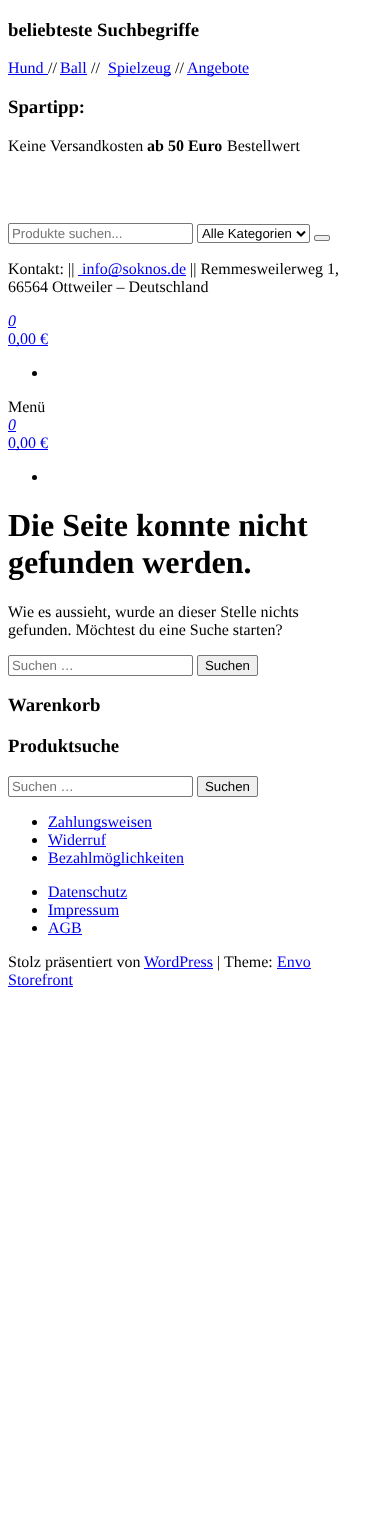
<!DOCTYPE html>
<meta charset="utf-8">
<style>body { margin: 0 } canvas { display: block }</style>
<canvas id="canvas" width="369" height="1538"></canvas>
<script type="module">
  const canvas = document.getElementById("canvas");
  const ctx = canvas.getContext("2d");
  ctx.miterLimit = 4;
  ctx.fontKerning = "normal";

  ctx.fillStyle = "#ffffff";
  ctx.fillRect(0, 0, 369, 1538);
  ctx.font = "bold 18.75px Liberation Serif";
  ctx.fillStyle = "#000000";
  ctx.fillText("beliebteste Suchbegriffe", 8, 36);
  ctx.font = "16px Liberation Serif";
  ctx.fillStyle = "#0000ee";
  ctx.fillText("Hund", 8, 73);
  ctx.fillRect(8, 74, 40, 1);
  ctx.fillStyle = "#000000";
  ctx.fillText("//", 48, 73);
  ctx.fillStyle = "#0000ee";
  ctx.fillText("Ball", 60, 73);
  ctx.fillRect(60, 74, 27, 1);
  ctx.fillStyle = "#000000";
  ctx.fillText("//", 91, 73);
  ctx.fillStyle = "#0000ee";
  ctx.fillRect(108, 74, 63, 1);
  ctx.fillText("Spielzeug", 108, 73);
  ctx.fillStyle = "#000000";
  ctx.fillText("//", 175, 73);
  ctx.fillStyle = "#0000ee";
  ctx.fillRect(187, 74, 62, 1);
  ctx.fillText("Angebote", 187, 73);
  ctx.font = "bold 18.75px Liberation Serif";
  ctx.fillStyle = "#000000";
  ctx.fillText("Spartipp:", 8, 113);
  ctx.font = "16px Liberation Serif";
  ctx.fillText("Keine Versandkosten", 8, 151);
  ctx.font = "bold 16px Liberation Serif";
  ctx.fillText("ab 50 Euro", 147, 151);
  ctx.font = "16px Liberation Serif";
  ctx.fillText("Bestellwert", 227, 151);
  ctx.beginPath();
  ctx.roundRect(8.5, 223.5, 184, 20, 1.5);
  ctx.strokeStyle = "#767676";
  ctx.stroke();
  ctx.font = "13.25px Liberation Sans";
  ctx.fillStyle = "#757575";
  ctx.fillText("Produkte suchen...", 12, 238);
  ctx.beginPath();
  ctx.roundRect(197.5, 224.5, 112, 18, 1.5);
  ctx.stroke();
  ctx.beginPath();
  ctx.moveTo(297, 231.5);
  ctx.lineTo(301, 235.5);
  ctx.lineTo(305, 231.5);
  ctx.strokeStyle = "#000000";
  ctx.lineWidth = 2;
  ctx.stroke();
  ctx.fillStyle = "#000000";
  ctx.fillText("Alle Kategorien", 202, 238);
  ctx.fillStyle = "#efefef";
  ctx.beginPath();
  ctx.roundRect(314.5, 235.5, 15, 5, 1.5);
  ctx.fill();
  ctx.strokeStyle = "#767676";
  ctx.lineWidth = 1;
  ctx.stroke();
  ctx.font = "16px Liberation Serif";
  ctx.fillStyle = "#000000";
  ctx.fillText("Kontakt: ||", 8, 274);
  ctx.fillStyle = "#0000ee";
  ctx.fillRect(78, 275, 108, 1);
  ctx.fillText("info@soknos.de", 82, 274);
  ctx.fillStyle = "#000000";
  ctx.fillText("|| Remmesweilerweg 1,", 190, 274);
  ctx.fillText("66564 Ottweiler – Deutschland", 8, 292);
  ctx.font = "italic 16px Liberation Serif";
  ctx.fillStyle = "#0000ee";
  ctx.fillText("0", 8, 326);
  ctx.fillRect(8, 327, 8, 1);
  ctx.fillRect(8, 345, 40, 1);
  ctx.font = "16px Liberation Serif";
  ctx.fillText("0,00 €", 8, 344);
  ctx.fillStyle = "#000000";
  ctx.beginPath();
  ctx.arc(34.5, 373.5, 2.5, 0, Math.PI * 2);
  ctx.fill();
  ctx.fillText("Menü", 8, 412);
  ctx.font = "italic 16px Liberation Serif";
  ctx.fillStyle = "#0000ee";
  ctx.fillText("0", 8, 430);
  ctx.fillRect(8, 431, 8, 1);
  ctx.fillRect(8, 449, 40, 1);
  ctx.font = "16px Liberation Serif";
  ctx.fillText("0,00 €", 8, 448);
  ctx.fillStyle = "#000000";
  ctx.beginPath();
  ctx.arc(34.5, 477.5, 2.5, 0, Math.PI * 2);
  ctx.fill();
  ctx.font = "bold 32px Liberation Serif";
  ctx.fillText("Die Seite konnte nicht", 8, 536);
  ctx.fillText("gefunden werden.", 8, 573);
  ctx.font = "16px Liberation Serif";
  ctx.fillText("Wie es aussieht, wurde an dieser Stelle nichts", 8, 617);
  ctx.fillText("gefunden. Möchtest du eine Suche starten?", 8, 635);
  ctx.beginPath();
  ctx.roundRect(8.5, 655.5, 184, 20, 1.5);
  ctx.stroke();
  ctx.font = "13.25px Liberation Sans";
  ctx.fillStyle = "#757575";
  ctx.fillText("Suchen …", 12, 670);
  ctx.fillStyle = "#efefef";
  ctx.beginPath();
  ctx.roundRect(197.5, 655.5, 60, 20, 1.5);
  ctx.fill();
  ctx.stroke();
  ctx.fillStyle = "#000000";
  ctx.fillText("Suchen", 205, 670);
  ctx.font = "bold 18.75px Liberation Serif";
  ctx.fillText("Warenkorb", 8, 711);
  ctx.fillText("Produktsuche", 8, 752);
  ctx.beginPath();
  ctx.roundRect(8.5, 776.5, 184, 20, 1.5);
  ctx.stroke();
  ctx.font = "13.25px Liberation Sans";
  ctx.fillStyle = "#757575";
  ctx.fillText("Suchen …", 12, 791);
  ctx.fillStyle = "#efefef";
  ctx.beginPath();
  ctx.roundRect(197.5, 776.5, 60, 20, 1.5);
  ctx.fill();
  ctx.stroke();
  ctx.fillStyle = "#000000";
  ctx.fillText("Suchen", 205, 791);
  ctx.beginPath();
  ctx.arc(34.5, 822.5, 2.5, 0, Math.PI * 2);
  ctx.fill();
  ctx.fillStyle = "#0000ee";
  ctx.fillRect(48, 828, 104, 1);
  ctx.font = "16px Liberation Serif";
  ctx.fillText("Zahlungsweisen", 48, 827);
  ctx.fillStyle = "#000000";
  ctx.beginPath();
  ctx.arc(34.5, 840.5, 2.5, 0, Math.PI * 2);
  ctx.fill();
  ctx.fillStyle = "#0000ee";
  ctx.fillText("Widerruf", 48, 845);
  ctx.fillRect(48, 846, 58, 1);
  ctx.fillStyle = "#000000";
  ctx.beginPath();
  ctx.arc(34.5, 858.5, 2.5, 0, Math.PI * 2);
  ctx.fill();
  ctx.fillStyle = "#0000ee";
  ctx.fillRect(48, 864, 136, 1);
  ctx.fillText("Bezahlmöglichkeiten", 48, 863);
  ctx.fillStyle = "#000000";
  ctx.beginPath();
  ctx.arc(34.5, 892.5, 2.5, 0, Math.PI * 2);
  ctx.fill();
  ctx.fillStyle = "#0000ee";
  ctx.fillText("Datenschutz", 48, 897);
  ctx.fillRect(48, 898, 79, 1);
  ctx.fillStyle = "#000000";
  ctx.beginPath();
  ctx.arc(34.5, 910.5, 2.5, 0, Math.PI * 2);
  ctx.fill();
  ctx.fillStyle = "#0000ee";
  ctx.fillRect(48, 916, 71, 1);
  ctx.fillText("Impressum", 48, 915);
  ctx.fillStyle = "#000000";
  ctx.beginPath();
  ctx.arc(34.5, 928.5, 2.5, 0, Math.PI * 2);
  ctx.fill();
  ctx.fillStyle = "#0000ee";
  ctx.fillText("AGB", 48, 933);
  ctx.fillRect(48, 934, 34, 1);
  ctx.fillStyle = "#000000";
  ctx.fillText("Stolz präsentiert von", 8, 967);
  ctx.fillStyle = "#0000ee";
  ctx.fillText("WordPress", 144, 967);
  ctx.fillRect(144, 968, 69, 1);
  ctx.fillStyle = "#000000";
  ctx.fillText("| Theme:", 217, 967);
  ctx.fillStyle = "#0000ee";
  ctx.fillText("Envo", 277, 967);
  ctx.fillRect(277, 968, 34, 1);
  ctx.fillText("Storefront", 8, 985);
  ctx.fillRect(8, 986, 65, 1);
</script>
